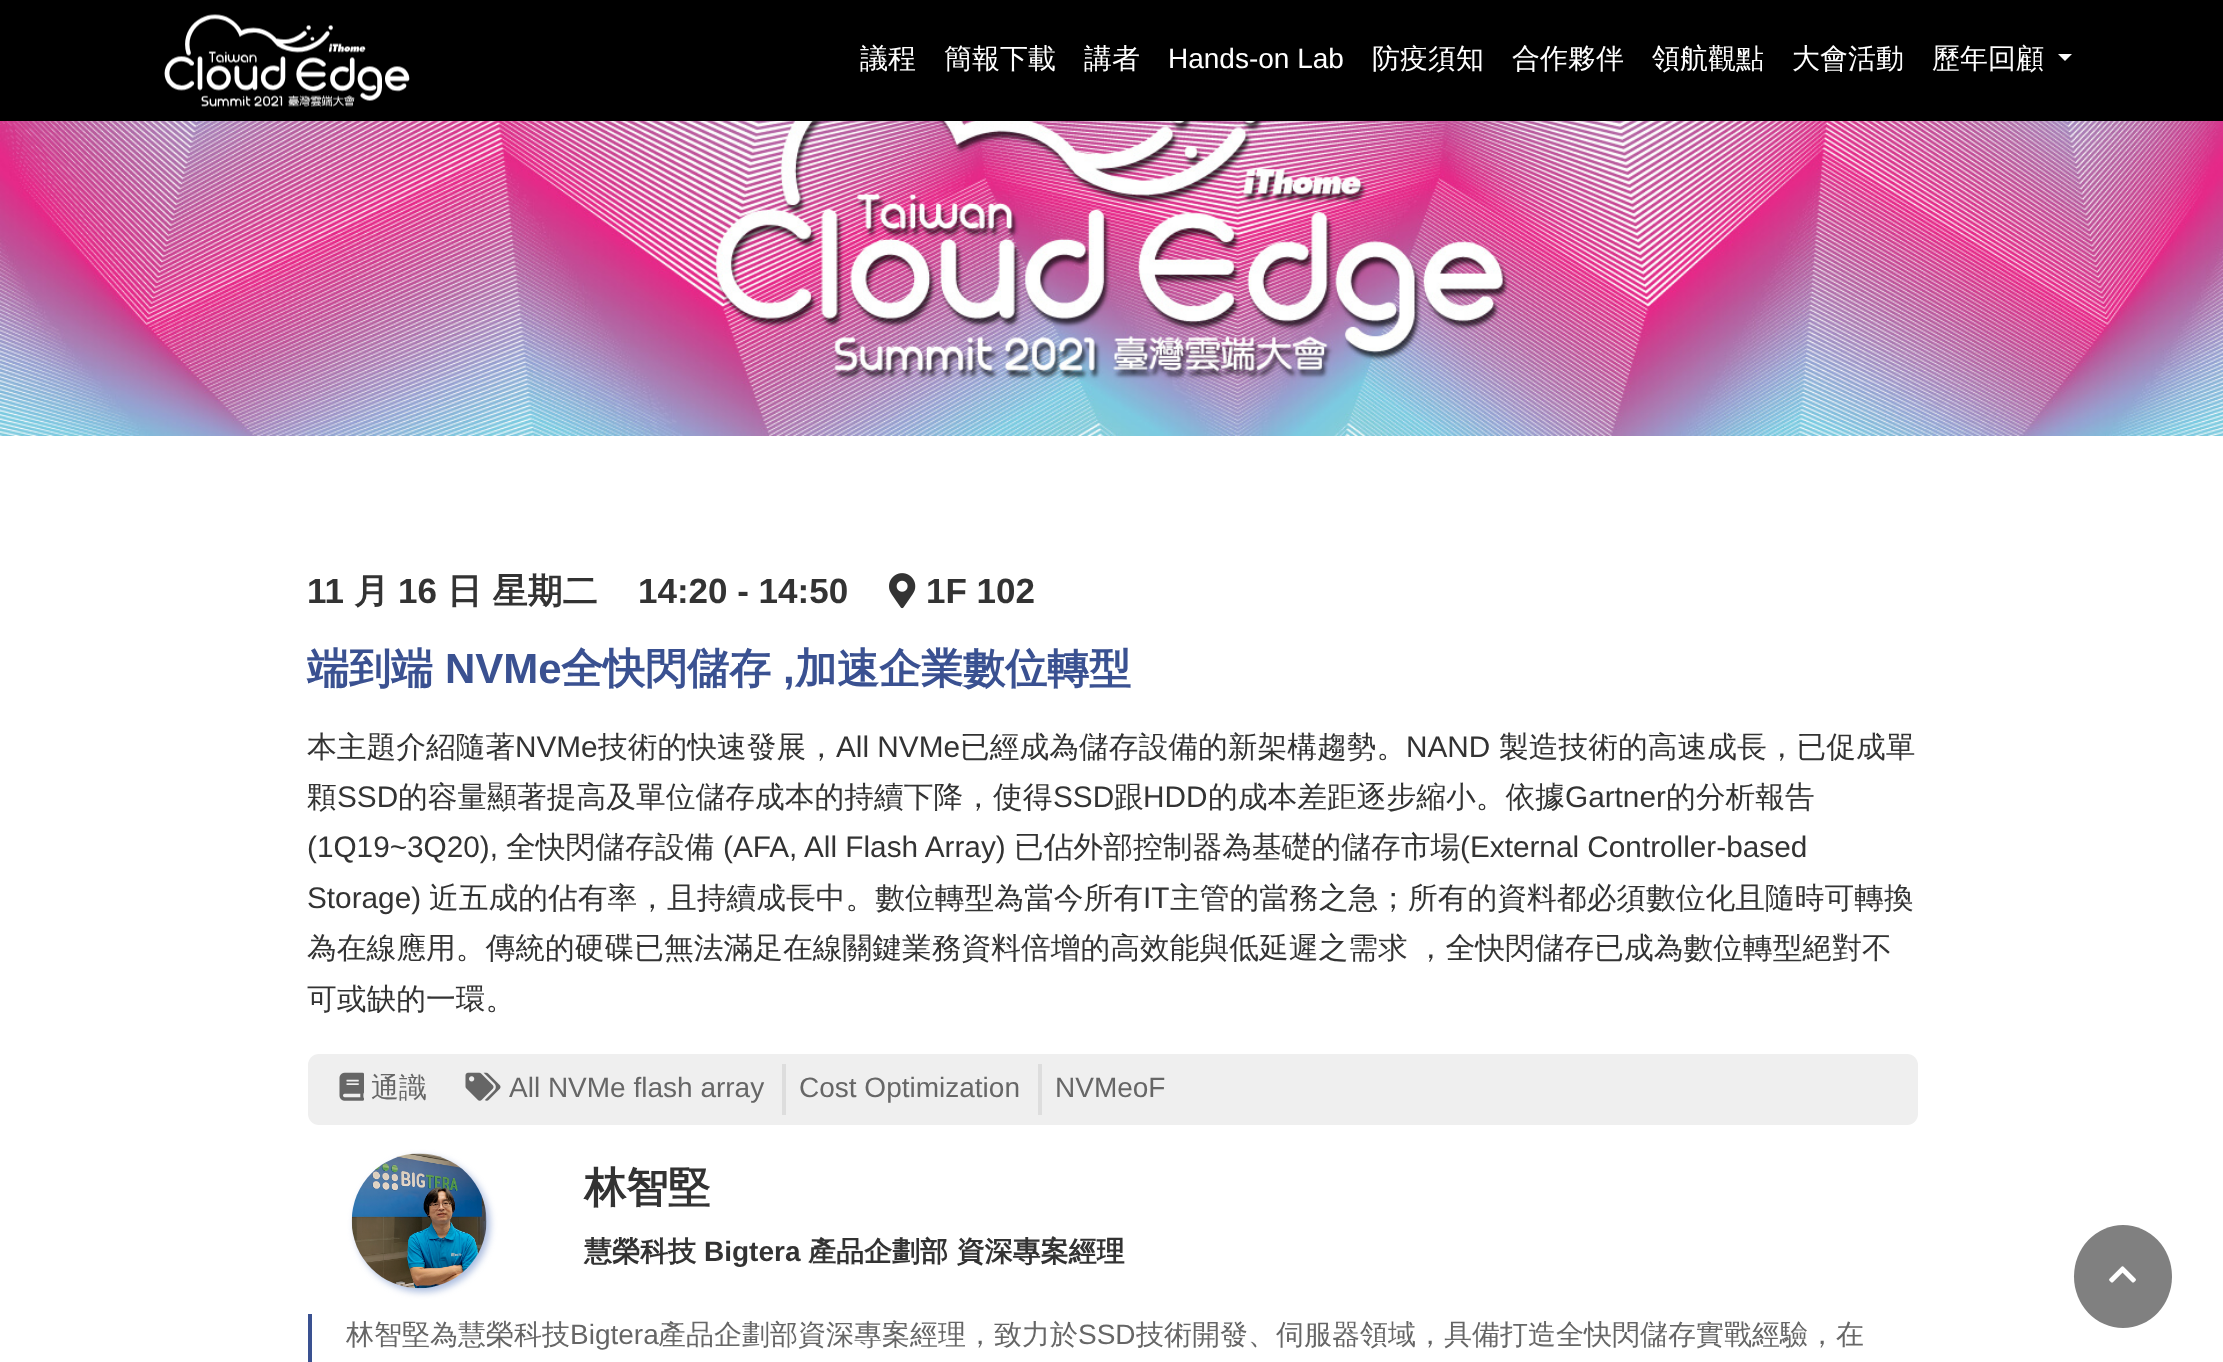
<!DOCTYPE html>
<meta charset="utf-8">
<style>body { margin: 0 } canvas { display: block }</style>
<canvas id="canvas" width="2223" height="1362"></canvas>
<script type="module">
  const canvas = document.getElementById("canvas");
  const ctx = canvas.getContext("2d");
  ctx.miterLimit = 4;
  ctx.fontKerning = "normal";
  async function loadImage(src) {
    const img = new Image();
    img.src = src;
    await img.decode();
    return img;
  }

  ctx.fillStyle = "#ffffff";
  ctx.fillRect(0, 0, 2223, 1362);
  ctx.fillStyle = "#000000";
  ctx.fillRect(0, 0, 2223, 121);
  ctx.drawImage(await loadImage("img1.png"), 164, 14, 246, 93);
  ctx.font = "500 28px WenQuanYi Zen Hei";
  ctx.fillStyle = "#ffffff";
  ctx.fillText("議程", 860, 68);
  ctx.fillText("簡報下載", 944, 68);
  ctx.fillText("講者", 1084, 68);
  ctx.font = "28px Liberation Sans";
  ctx.fillText("Hands-on Lab", 1168, 68);
  ctx.font = "500 28px WenQuanYi Zen Hei";
  ctx.fillText("防疫須知", 1372, 68);
  ctx.fillText("合作夥伴", 1512, 68);
  ctx.fillText("領航觀點", 1652, 68);
  ctx.fillText("大會活動", 1792, 68);
  ctx.fillText("歷年回顧", 1932, 68);
  ctx.beginPath();
  ctx.moveTo(2058, 54);
  ctx.lineTo(2072, 54);
  ctx.lineTo(2065, 61);
  ctx.closePath();
  ctx.fill();
  ctx.drawImage(await loadImage("img2.png"), 0, 121, 2223, 315);
  ctx.font = "bold 35px Liberation Sans";
  ctx.fillStyle = "#333333";
  ctx.fillText("11", 307, 603);
  ctx.font = "bold 35px WenQuanYi Zen Hei";
  ctx.fillText("月", 354, 603);
  ctx.font = "bold 35px Liberation Sans";
  ctx.fillText("16", 398, 603);
  ctx.font = "bold 35px WenQuanYi Zen Hei";
  ctx.fillText("日 星期二", 447, 603);
  ctx.font = "bold 35px Liberation Sans";
  ctx.fillText("14:20 - 14:50", 638, 603);
  ctx.drawImage(await loadImage("img3.png"), 889, 573, 27, 36);
  ctx.fillText("1F 102", 926, 603);
  ctx.font = "bold 42px WenQuanYi Zen Hei";
  ctx.fillStyle = "#3a5191";
  ctx.fillText("端到端", 307, 683);
  ctx.font = "bold 42px Liberation Sans";
  ctx.fillText("NVMe", 445, 683);
  ctx.font = "bold 42px WenQuanYi Zen Hei";
  ctx.fillText("全快閃儲存", 561, 683);
  ctx.font = "bold 42px Liberation Sans";
  ctx.fillText(",", 783, 683);
  ctx.font = "bold 42px WenQuanYi Zen Hei";
  ctx.fillText("加速企業數位轉型", 795, 683);
  ctx.font = "500 29.75px WenQuanYi Zen Hei";
  ctx.fillStyle = "#333333";
  ctx.fillText("本主題介紹隨著", 307, 757);
  ctx.font = "29.75px Liberation Sans";
  ctx.fillText("NVMe", 515, 757);
  ctx.font = "500 29.75px WenQuanYi Zen Hei";
  ctx.fillText("技術的快速發展，", 598, 757);
  ctx.font = "29.75px Liberation Sans";
  ctx.fillText("All NVMe", 836, 757);
  ctx.font = "500 29.75px WenQuanYi Zen Hei";
  ctx.fillText("已經成為儲存設備的新架構趨勢。", 960, 757);
  ctx.font = "29.75px Liberation Sans";
  ctx.fillText("NAND", 1406, 757);
  ctx.font = "500 29.75px WenQuanYi Zen Hei";
  ctx.fillText("製造技術的高速成長，已促成單", 1499, 757);
  ctx.fillText("顆", 307, 807);
  ctx.font = "29.75px Liberation Sans";
  ctx.fillText("SSD", 337, 807);
  ctx.font = "500 29.75px WenQuanYi Zen Hei";
  ctx.fillText("的容量顯著提高及單位儲存成本的持續下降，使得", 398, 807);
  ctx.font = "29.75px Liberation Sans";
  ctx.fillText("SSD", 1053, 807);
  ctx.font = "500 29.75px WenQuanYi Zen Hei";
  ctx.fillText("跟", 1114, 807);
  ctx.font = "29.75px Liberation Sans";
  ctx.fillText("HDD", 1143, 807);
  ctx.font = "500 29.75px WenQuanYi Zen Hei";
  ctx.fillText("的成本差距逐步縮小。依據", 1208, 807);
  ctx.font = "29.75px Liberation Sans";
  ctx.fillText("Gartner", 1565, 807);
  ctx.font = "500 29.75px WenQuanYi Zen Hei";
  ctx.fillText("的分析報告", 1666, 807);
  ctx.font = "29.75px Liberation Sans";
  ctx.fillText("(1Q19~3Q20),", 307, 857);
  ctx.font = "500 29.75px WenQuanYi Zen Hei";
  ctx.fillText("全快閃儲存設備", 506, 857);
  ctx.font = "29.75px Liberation Sans";
  ctx.fillText("(AFA, All Flash Array)", 723, 857);
  ctx.font = "500 29.75px WenQuanYi Zen Hei";
  ctx.fillText("已佔外部控制器為基礎的儲存市場", 1014, 857);
  ctx.font = "29.75px Liberation Sans";
  ctx.fillText("(External Controller-based", 1460, 857);
  ctx.fillText("Storage)", 307, 908);
  ctx.font = "500 29.75px WenQuanYi Zen Hei";
  ctx.fillText("近五成的佔有率，且持續成長中。數位轉型為當今所有", 429, 908);
  ctx.font = "29.75px Liberation Sans";
  ctx.fillText("IT", 1143, 908);
  ctx.font = "500 29.75px WenQuanYi Zen Hei";
  ctx.fillText("主管的當務之急；所有的資料都必須數位化且隨時可轉換", 1170, 908);
  ctx.wordSpacing = "-1px";
  ctx.fillText("為在線應用。傳統的硬碟已無法滿足在線關鍵業務資料倍增的高效能與低延遲之需求 ，全快閃儲存已成為數位轉型絕對不", 307, 958);
  ctx.wordSpacing = "0px";
  ctx.fillText("可或缺的一環。", 307, 1009);
  ctx.fillStyle = "#efefef";
  ctx.beginPath();
  ctx.roundRect(308, 1054, 1610, 71, 11);
  ctx.fill();
  ctx.drawImage(await loadImage("img4.png"), 339, 1072, 25, 29);
  ctx.font = "500 28px WenQuanYi Zen Hei";
  ctx.fillStyle = "#666666";
  ctx.fillText("通識", 371, 1097);
  ctx.drawImage(await loadImage("img5.png"), 465, 1072, 36, 29);
  ctx.fillStyle = "#dddddd";
  ctx.fillRect(782, 1064, 4, 51);
  ctx.font = "28px Liberation Sans";
  ctx.fillStyle = "#666666";
  ctx.fillText("All NVMe flash array", 509, 1097);
  ctx.fillStyle = "#dddddd";
  ctx.fillRect(1038, 1064, 4, 51);
  ctx.fillStyle = "#666666";
  ctx.fillText("Cost Optimization", 799, 1097);
  ctx.fillText("NVMeoF", 1055, 1097);
  ctx.fillStyle = "rgba(116, 145, 202, 0.6)";
  ctx.filter = "blur(3.5px)";
  ctx.beginPath();
  ctx.roundRect(355, 1157, 135, 135, 67.5);
  ctx.fill();
  ctx.filter = "none";
  ctx.drawImage(await loadImage("img6.png"), 351, 1153, 136, 136);
  ctx.font = "bold 42px WenQuanYi Zen Hei";
  ctx.fillStyle = "#333333";
  ctx.fillText("林智堅", 584, 1202);
  ctx.font = "bold 28px WenQuanYi Zen Hei";
  ctx.fillText("慧榮科技", 584, 1261);
  ctx.font = "bold 28px Liberation Sans";
  ctx.fillText("Bigtera", 704, 1261);
  ctx.font = "bold 28px WenQuanYi Zen Hei";
  ctx.fillText("產品企劃部 資深專案經理", 808, 1261);
  ctx.fillStyle = "#3a5191";
  ctx.fillRect(308, 1314, 4, 48);
  ctx.font = "500 28px WenQuanYi Zen Hei";
  ctx.fillStyle = "#666666";
  ctx.fillText("林智堅為慧榮科技", 346, 1344);
  ctx.font = "28px Liberation Sans";
  ctx.fillText("Bigtera", 570, 1344);
  ctx.font = "500 28px WenQuanYi Zen Hei";
  ctx.fillText("產品企劃部資深專案經理，致力於", 658, 1344);
  ctx.font = "28px Liberation Sans";
  ctx.fillText("SSD", 1078, 1344);
  ctx.font = "500 28px WenQuanYi Zen Hei";
  ctx.fillText("技術開發、伺服器領域，具備打造全快閃儲存實戰經驗，在", 1136, 1344);
  ctx.fillStyle = "#808080";
  ctx.beginPath();
  ctx.ellipse(2123, 1276.5, 49, 51.5, 0, 0, Math.PI * 2);
  ctx.fill();
  ctx.drawImage(await loadImage("img7.png"), 2109, 1266, 27, 17);
</script>
